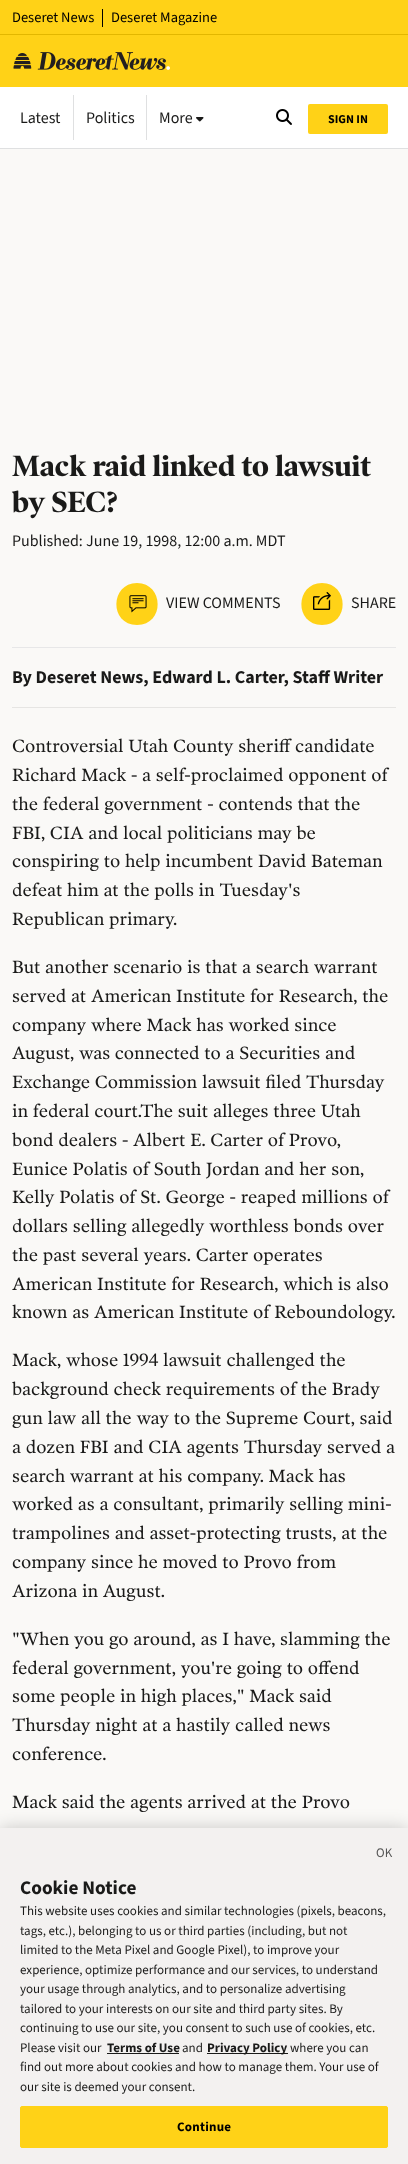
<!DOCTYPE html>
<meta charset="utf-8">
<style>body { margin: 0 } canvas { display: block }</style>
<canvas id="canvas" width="408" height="2164"></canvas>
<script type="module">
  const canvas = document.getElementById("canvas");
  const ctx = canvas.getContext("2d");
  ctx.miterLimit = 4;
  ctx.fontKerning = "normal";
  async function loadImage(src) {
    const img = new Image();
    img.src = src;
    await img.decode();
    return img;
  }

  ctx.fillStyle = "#faf9f7";
  ctx.fillRect(0, 0, 408, 2164);
  ctx.fillStyle = "#ffd217";
  ctx.fillRect(0, 0, 408, 34);
  ctx.fillStyle = "#e3b700";
  ctx.fillRect(0, 34, 408, 1);
  ctx.font = "14.5px 'Source Sans 3'";
  ctx.fillStyle = "#000000";
  ctx.fillText("Deseret News", 12, 22);
  ctx.fillRect(102, 9, 1, 18);
  ctx.fillText("Deseret Magazine", 111, 22);
  ctx.fillStyle = "#ffd217";
  ctx.fillRect(0, 35, 408, 52);
  ctx.drawImage(await loadImage("img1.png"), 13, 52, 157, 18);
  ctx.fillStyle = "#ffffff";
  ctx.fillRect(0, 87, 408, 61);
  ctx.fillStyle = "#dfe0e1";
  ctx.fillRect(0, 148, 408, 1);
  ctx.font = "16px 'Source Sans 3'";
  ctx.fillStyle = "#1a1a19";
  ctx.fillText("Latest", 20, 123);
  ctx.fillStyle = "#dfe0e1";
  ctx.fillRect(73, 95, 1, 45);
  ctx.fillStyle = "#1a1a19";
  ctx.fillText("Politics", 86, 123);
  ctx.fillStyle = "#dfe0e1";
  ctx.fillRect(146, 95, 1, 45);
  ctx.fillStyle = "#1a1a19";
  ctx.fillText("More", 159, 123);
  ctx.drawImage(await loadImage("img2.png"), 196, 117, 8, 5);
  ctx.drawImage(await loadImage("img3.png"), 276, 109, 16, 16);
  ctx.fillStyle = "#ffd217";
  ctx.beginPath();
  ctx.roundRect(308, 104, 80, 30, 2);
  ctx.fill();
  ctx.font = "bold 12px 'Source Sans 3'";
  ctx.fillStyle = "#000000";
  ctx.fillText("SIGN IN", 328, 123);
  ctx.font = "bold 29.75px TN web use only";
  ctx.fillStyle = "#1a1a19";
  ctx.fillText("Mack raid linked to lawsuit", 12, 476);
  ctx.fillText("by SEC?", 12, 512);
  ctx.font = "16px 'Source Sans 3'";
  ctx.fillText("Published: June 19, 1998, 12:00 a.m. MDT", 12, 546);
  ctx.fillStyle = "#ffd217";
  ctx.beginPath();
  ctx.moveTo(137, 625);
  ctx.bezierCurveTo(165, 625, 164, 583, 137, 583);
  ctx.bezierCurveTo(110, 583, 109, 625, 137, 625);
  ctx.closePath();
  ctx.fill();
  ctx.drawImage(await loadImage("img4.png"), 129, 595, 18, 18);
  ctx.fillStyle = "#1a1a19";
  ctx.fillText("VIEW COMMENTS", 166, 608);
  ctx.fillStyle = "#ffd217";
  ctx.beginPath();
  ctx.moveTo(322, 625);
  ctx.bezierCurveTo(350, 625, 349, 583, 322, 583);
  ctx.bezierCurveTo(295, 583, 294, 625, 322, 625);
  ctx.closePath();
  ctx.fill();
  ctx.drawImage(await loadImage("img5.png"), 313, 592, 18, 18);
  ctx.fillStyle = "#1a1a19";
  ctx.fillText("SHARE", 351, 608);
  ctx.fillStyle = "#e7e7e8";
  ctx.fillRect(12, 647, 384, 1);
  ctx.fillStyle = "#e6e5e3";
  ctx.fillRect(12, 707, 384, 1);
  ctx.font = "bold 18px 'Source Sans 3'";
  ctx.fillStyle = "#1a1a19";
  ctx.fillText("By Deseret News, Edward L. Carter, Staff Writer", 12, 683);
  ctx.font = "18px TN web use only";
  ctx.fillText("Controversial Utah County sheriff candidate", 12, 752);
  ctx.fillText("Richard Mack - a self-proclaimed opponent of", 12, 781);
  ctx.fillText("the federal government - contends that the", 12, 810);
  ctx.fillText("FBI, CIA and local politicians may be", 12, 839);
  ctx.fillText("conspiring to help incumbent David Bateman", 12, 867);
  ctx.fillText("defeat him at the polls in Tuesday's", 12, 896);
  ctx.fillText("Republican primary.", 12, 925);
  ctx.fillText("But another scenario is that a search warrant", 12, 973);
  ctx.fillText("served at American Institute for Research, the", 12, 1002);
  ctx.fillText("company where Mack has worked since", 12, 1031);
  ctx.fillText("August, was connected to a Securities and", 12, 1059);
  ctx.fillText("Exchange Commission lawsuit filed Thursday", 12, 1088);
  ctx.fillText("in federal court.The suit alleges three Utah", 12, 1117);
  ctx.fillText("bond dealers - Albert E. Carter of Provo,", 12, 1146);
  ctx.fillText("Eunice Polatis of South Jordan and her son,", 12, 1175);
  ctx.fillText("Kelly Polatis of St. George - reaped millions of", 12, 1203);
  ctx.fillText("dollars selling allegedly worthless bonds over", 12, 1232);
  ctx.fillText("the past several years. Carter operates", 12, 1261);
  ctx.fillText("American Institute for Research, which is also", 12, 1290);
  ctx.fillText("known as American Institute of Reboundology.", 12, 1318);
  ctx.fillText("Mack, whose 1994 lawsuit challenged the", 12, 1366);
  ctx.fillText("background check requirements of the Brady", 12, 1395);
  ctx.fillText("gun law all the way to the Supreme Court, said", 12, 1424);
  ctx.fillText("a dozen FBI and CIA agents Thursday served a", 12, 1453);
  ctx.fillText("search warrant at his company. Mack has", 12, 1482);
  ctx.fillText("worked as a consultant, primarily selling mini-", 12, 1510);
  ctx.fillText("trampolines and asset-protecting trusts, at the", 12, 1539);
  ctx.fillText("company since he moved to Provo from", 12, 1568);
  ctx.fillText("Arizona in August.", 12, 1597);
  ctx.fillText("\"When you go around, as I have, slamming the", 12, 1645);
  ctx.fillText("federal government, you're going to offend", 12, 1674);
  ctx.fillText("some people in high places,\" Mack said", 12, 1702);
  ctx.fillText("Thursday night at a hastily called news", 12, 1731);
  ctx.fillText("conference.", 12, 1760);
  ctx.fillText("Mack said the agents arrived at the Provo", 12, 1808);
  ctx.fillStyle = "rgba(0, 0, 0, 0.2)";
  ctx.filter = "blur(9px)";
  ctx.beginPath();
  ctx.rect(0, 1828, 408, 336);
  ctx.fill();
  ctx.filter = "none";
  ctx.fillStyle = "#f3f1f0";
  ctx.fillRect(0, 1828, 408, 336);
  ctx.font = "13px 'Source Sans 3'";
  ctx.fillStyle = "#555555";
  ctx.fillText("OK", 376, 1857);
  ctx.font = "bold 19.25px 'Source Sans 3'";
  ctx.fillStyle = "#1a1a19";
  ctx.fillText("Cookie Notice", 20, 1894);
  ctx.font = "13px 'Source Sans 3'";
  ctx.fillText("This website uses cookies and similar technologies (pixels, beacons,", 20, 1915);
  ctx.fillText("tags, etc.), belonging to us or third parties (including, but not", 20, 1935);
  ctx.fillText("limited to the Meta Pixel and Google Pixel), to improve your", 20, 1954);
  ctx.fillText("experience, optimize performance and our services, to understand", 20, 1974);
  ctx.fillText("your usage through analytics, and to personalize advertising", 20, 1993);
  ctx.fillText("tailored to your interests on our site and third party sites. By", 20, 2013);
  ctx.fillText("continuing to use our site, you consent to such use of cookies, etc.", 20, 2032);
  ctx.fillText("Please visit our", 20, 2052);
  ctx.font = "bold 13px 'Source Sans 3'";
  ctx.fillText("Terms of Use", 107, 2052);
  ctx.fillRect(107, 2053, 72, 1);
  ctx.font = "13px 'Source Sans 3'";
  ctx.fillText("and", 182, 2052);
  ctx.fillRect(207, 2053, 81, 1);
  ctx.font = "bold 13px 'Source Sans 3'";
  ctx.fillText("Privacy Policy", 207, 2052);
  ctx.font = "13px 'Source Sans 3'";
  ctx.fillText("where you can", 290, 2052);
  ctx.fillText("find out more about cookies and how to manage them. Your use of", 20, 2071);
  ctx.fillText("our site is deemed your consent.", 20, 2091);
  ctx.fillStyle = "#ffd217";
  ctx.beginPath();
  ctx.roundRect(20.5, 2106.5, 367, 41, 1.5);
  ctx.fill();
  ctx.strokeStyle = "#ffd217";
  ctx.stroke();
  ctx.letterSpacing = "0.25px";
  ctx.font = "bold 13px 'Source Sans 3'";
  ctx.fillStyle = "#000000";
  ctx.fillText("Continue", 177, 2131);
</script>
